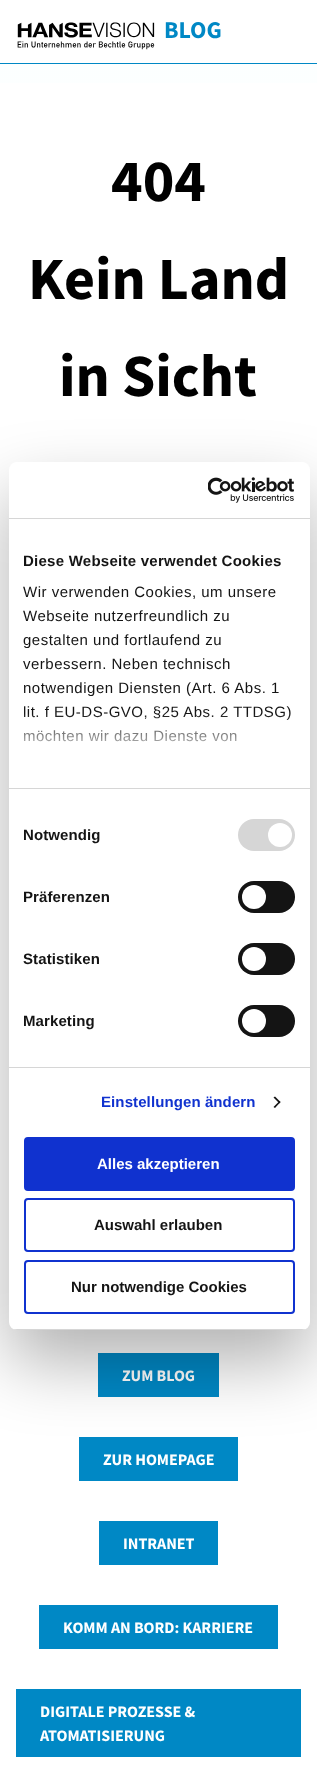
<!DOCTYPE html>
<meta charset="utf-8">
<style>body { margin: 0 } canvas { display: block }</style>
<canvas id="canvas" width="317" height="1792"></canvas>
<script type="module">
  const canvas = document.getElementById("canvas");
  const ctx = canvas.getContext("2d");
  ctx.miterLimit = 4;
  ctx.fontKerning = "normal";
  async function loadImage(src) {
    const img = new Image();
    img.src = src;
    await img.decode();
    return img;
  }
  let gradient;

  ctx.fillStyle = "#ffffff";
  ctx.fillRect(0, 0, 317, 1792);
  gradient = ctx.createLinearGradient(158, 0, 159, 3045);
  gradient.addColorStop(0, "#fcffff");
  gradient.addColorStop(0.3, "#ffffff");
  gradient.addColorStop(0.3, "#f3f1f2");
  gradient.addColorStop(1, "#f3f1f2");
  ctx.fillStyle = gradient;
  ctx.fillRect(0, 64, 317, 19);
  ctx.fillStyle = "#0088c5";
  ctx.fillRect(0, 63, 317, 1);
  ctx.drawImage(await loadImage("img1.png"), 17, 22, 138, 28);
  ctx.font = "bold 24px Source Sans Pro";
  ctx.fillText("BLOG", 164, 38);
  ctx.font = "bold 60px Source Sans Pro";
  ctx.fillStyle = "#000000";
  ctx.fillText("404", 111, 201);
  ctx.fillText("Kein Land", 28, 299);
  ctx.fillText("in Sicht", 59, 396);
  ctx.fillStyle = "#0088c5";
  ctx.fillRect(98, 1353, 121, 44);
  ctx.font = "bold 16px Source Sans Pro";
  ctx.fillStyle = "#ffffff";
  ctx.fillText("ZUM BLOG", 122, 1381);
  ctx.fillStyle = "#0088c5";
  ctx.fillRect(79, 1437, 159, 44);
  ctx.fillStyle = "#ffffff";
  ctx.fillText("ZUR HOMEPAGE", 103, 1465);
  ctx.fillStyle = "#0088c5";
  ctx.fillRect(99, 1521, 119, 44);
  ctx.fillStyle = "#ffffff";
  ctx.fillText("INTRANET", 123, 1549);
  ctx.fillStyle = "#0088c5";
  ctx.fillRect(39, 1605, 239, 44);
  ctx.fillStyle = "#ffffff";
  ctx.fillText("KOMM AN BORD: KARRIERE", 63, 1633);
  ctx.fillStyle = "#0088c5";
  ctx.fillRect(16, 1689, 285, 68);
  ctx.fillStyle = "#ffffff";
  ctx.fillText("DIGITALE PROZESSE &", 40, 1717);
  ctx.fillText("ATOMATISIERUNG", 40, 1741);
  ctx.fillStyle = "rgba(0, 0, 0, 0.3)";
  ctx.filter = "blur(34px)";
  ctx.beginPath();
  ctx.roundRect(9, 494, 301, 868, 8);
  ctx.fill();
  ctx.filter = "none";
  ctx.fillStyle = "#ffffff";
  ctx.beginPath();
  ctx.roundRect(9, 462, 301, 868, 8);
  ctx.fill();
  ctx.fillStyle = "#d6d6d6";
  ctx.fillRect(9, 518, 301, 1);
  ctx.drawImage(await loadImage("img2.png"), 208, 477, 86, 26);
  ctx.fillRect(9, 788, 301, 1);
  ctx.letterSpacing = "0.25px";
  ctx.font = "bold 15px Liberation Sans";
  ctx.fillStyle = "#141414";
  ctx.fillText("Diese Webseite verwendet Cookies", 23, 566);
  ctx.letterSpacing = "0.5px";
  ctx.font = "15px Liberation Sans";
  ctx.fillText("Wir verwenden Cookies, um unsere", 23, 597);
  ctx.fillText("Webseite nutzerfreundlich zu", 23, 621);
  ctx.fillText("gestalten und fortlaufend zu", 23, 645);
  ctx.fillText("verbessern. Neben technisch", 23, 669);
  ctx.fillText("notwendigen Diensten (Art. 6 Abs. 1", 23, 693);
  ctx.fillText("lit. f EU-DS-GVO, §25 Abs. 2 TTDSG)", 23, 717);
  ctx.fillText("möchten wir dazu Dienste von", 23, 741);
  gradient = ctx.createLinearGradient(153, 788, 153, 713);
  gradient.addColorStop(0, "#ffffff");
  gradient.addColorStop(0.5, "rgba(255, 255, 255, 0.8)");
  gradient.addColorStop(1, "rgba(255, 255, 255, 0)");
  ctx.fillStyle = gradient;
  ctx.fillRect(24, 714, 267, 28);
  ctx.fillStyle = "#d6d6d6";
  ctx.fillRect(9, 1067, 301, 1);
  ctx.letterSpacing = "0.1px";
  ctx.font = "bold 15px Liberation Sans";
  ctx.fillStyle = "#141414";
  ctx.fillText("Notwendig", 23, 840);
  ctx.fillStyle = "#d6d6d6";
  ctx.beginPath();
  ctx.roundRect(238, 819, 57, 32, 16);
  ctx.fill();
  ctx.fillStyle = "#ffffff";
  ctx.beginPath();
  ctx.arc(280, 835, 12, 0, Math.PI * 2);
  ctx.fill();
  ctx.fillStyle = "#141414";
  ctx.fillText("Präferenzen", 23, 902);
  ctx.beginPath();
  ctx.roundRect(238, 881, 57, 32, 16);
  ctx.fill();
  ctx.fillStyle = "#ffffff";
  ctx.beginPath();
  ctx.arc(254, 897, 12, 0, Math.PI * 2);
  ctx.fill();
  ctx.fillStyle = "#141414";
  ctx.fillText("Statistiken", 23, 964);
  ctx.beginPath();
  ctx.roundRect(238, 943, 57, 32, 16);
  ctx.fill();
  ctx.fillStyle = "#ffffff";
  ctx.beginPath();
  ctx.arc(254, 959, 12, 0, Math.PI * 2);
  ctx.fill();
  ctx.fillStyle = "#141414";
  ctx.fillText("Marketing", 23, 1026);
  ctx.beginPath();
  ctx.roundRect(238, 1005, 57, 32, 16);
  ctx.fill();
  ctx.fillStyle = "#ffffff";
  ctx.beginPath();
  ctx.arc(254, 1021, 12, 0, Math.PI * 2);
  ctx.fill();
  ctx.fillStyle = "#1032cf";
  ctx.fillText("Einstellungen ändern", 101, 1107);
  ctx.fillStyle = "#141414";
  ctx.beginPath();
  ctx.moveTo(275, 1096.5);
  ctx.lineTo(280.5, 1102);
  ctx.lineTo(279.5, 1103.5);
  ctx.lineTo(273.5, 1097.5);
  ctx.closePath();
  ctx.fill();
  ctx.beginPath();
  ctx.moveTo(279.5, 1101);
  ctx.lineTo(280.5, 1102);
  ctx.lineTo(275, 1108);
  ctx.lineTo(273.5, 1107);
  ctx.closePath();
  ctx.fill();
  ctx.save();
  ctx.beginPath();
  ctx.roundRect(9, 462, 301, 868, 8);
  ctx.clip();
  ctx.fillStyle = "#d6d6d6";
  ctx.fillRect(9, 1329, 301, 1);
  ctx.restore();
  ctx.fillStyle = "#1032cf";
  ctx.beginPath();
  ctx.roundRect(25, 1138, 269, 52, 3);
  ctx.fill();
  ctx.strokeStyle = "#1032cf";
  ctx.lineWidth = 2;
  ctx.stroke();
  ctx.letterSpacing = "0px";
  ctx.fillStyle = "#ffffff";
  ctx.fillText("Alles akzeptieren", 97, 1169);
  ctx.beginPath();
  ctx.roundRect(25, 1199, 269, 52, 3);
  ctx.stroke();
  ctx.fillStyle = "#141414";
  ctx.fillText("Auswahl erlauben", 94, 1230);
  ctx.beginPath();
  ctx.roundRect(25, 1261, 269, 52, 3);
  ctx.stroke();
  ctx.fillText("Nur notwendige Cookies", 71, 1292);
</script>
